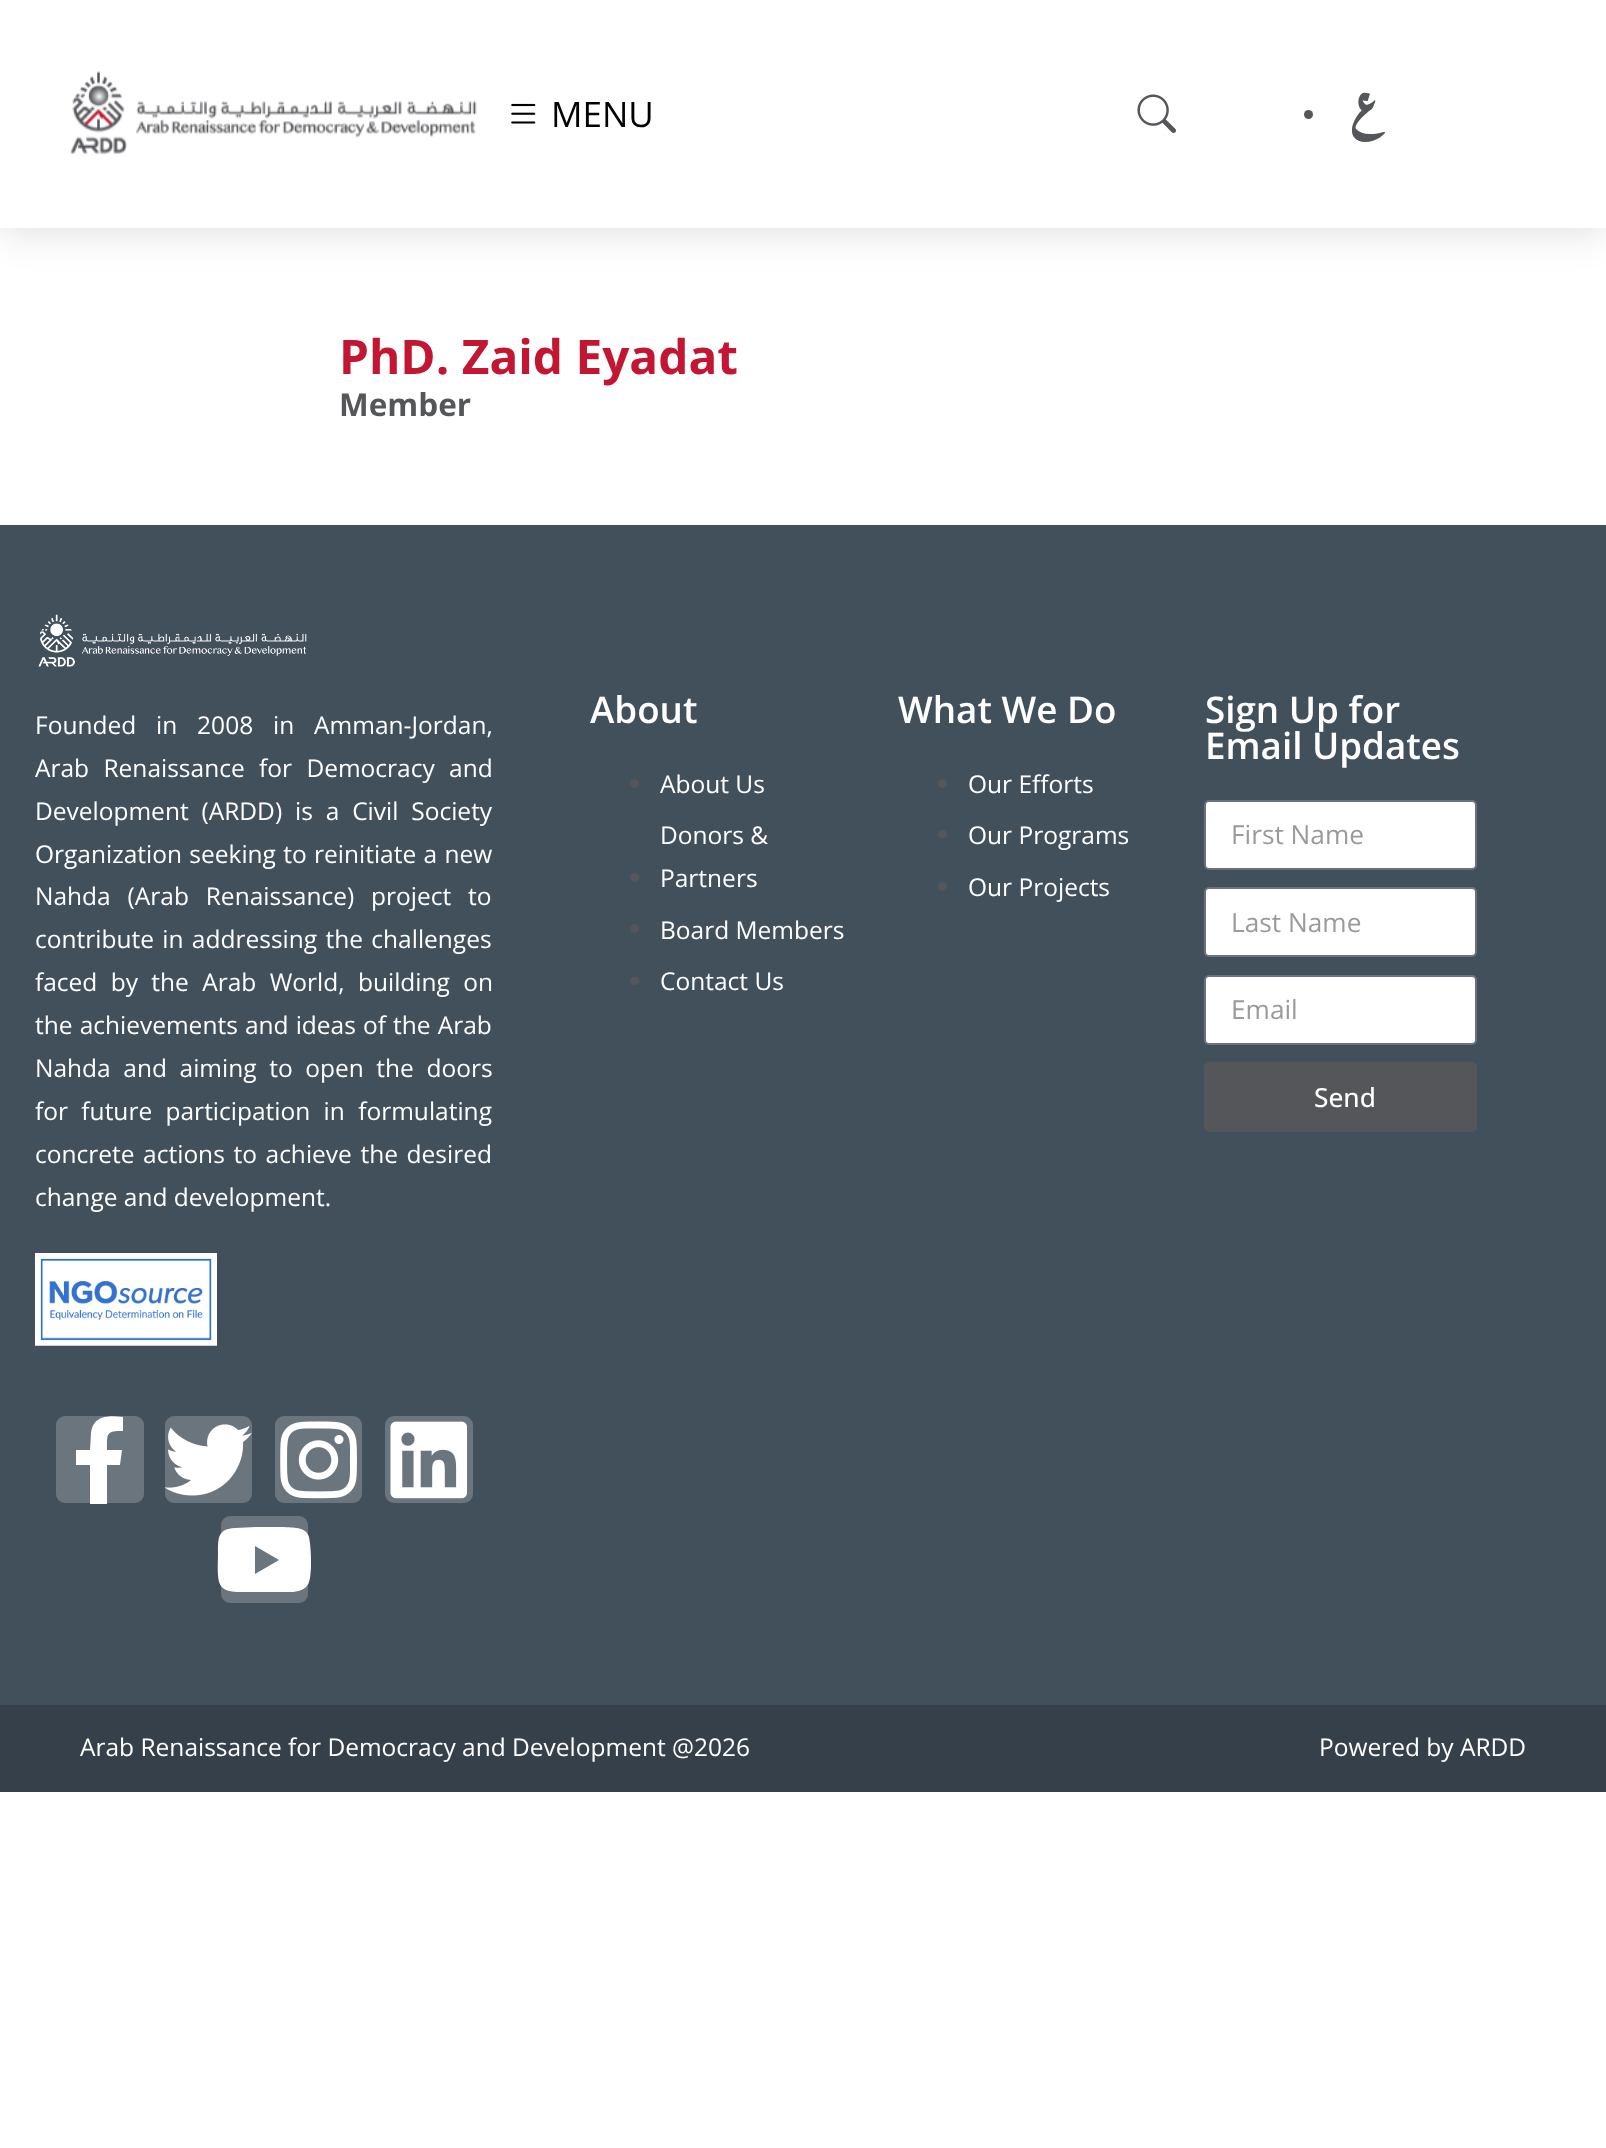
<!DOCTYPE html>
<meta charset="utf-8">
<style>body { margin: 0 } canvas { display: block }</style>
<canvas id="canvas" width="1606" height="2148"></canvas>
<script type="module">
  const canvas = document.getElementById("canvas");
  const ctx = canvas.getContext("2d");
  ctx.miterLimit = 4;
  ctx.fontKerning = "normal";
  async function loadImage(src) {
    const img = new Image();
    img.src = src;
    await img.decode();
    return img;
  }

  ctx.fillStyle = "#ffffff";
  ctx.fillRect(0, 0, 1606, 2148);
  ctx.fillStyle = "rgba(0, 0, 0, 0.15)";
  ctx.filter = "blur(21px)";
  ctx.beginPath();
  ctx.rect(0, 0, 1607, 228);
  ctx.fill();
  ctx.filter = "none";
  ctx.fillStyle = "#ffffff";
  ctx.fillRect(0, 0, 1606, 228);
  ctx.drawImage(await loadImage("img1.png"), 70, 71, 407, 84);
  ctx.drawImage(await loadImage("img2.png"), 511, 103, 25, 21);
  ctx.font = "35px Open Sans";
  ctx.fillStyle = "#000000";
  ctx.fillText("MENU", 551, 127);
  ctx.drawImage(await loadImage("img3.png"), 1137, 94, 39, 39);
  ctx.fillStyle = "#54565a";
  ctx.beginPath();
  ctx.arc(1308.5, 114.5, 4.5, 0, Math.PI * 2);
  ctx.fill();
  ctx.direction = "rtl";
  ctx.font = "bold 51px Aref Ruqaa";
  ctx.fillText("ع", 1387, 124);
  ctx.direction = "ltr";
  ctx.font = "bold 47.75px Open Sans";
  ctx.fillStyle = "#c21632";
  ctx.fillText("PhD. Zaid Eyadat", 339, 374);
  ctx.font = "bold 31.5px Open Sans";
  ctx.fillStyle = "#54565a";
  ctx.fillText("Member", 339, 416);
  ctx.fillStyle = "#42505c";
  ctx.fillRect(0, 525, 1606, 1180);
  ctx.drawImage(await loadImage("img4.png"), 38, 614, 269, 53);
  ctx.wordSpacing = "13.5px";
  ctx.font = "24.5px Open Sans";
  ctx.fillStyle = "#ffffff";
  ctx.fillText("Founded in 2008 in Amman-Jordan,", 35, 734);
  ctx.wordSpacing = "8px";
  ctx.fillText("Arab Renaissance for Democracy and", 35, 777);
  ctx.wordSpacing = "6.5px";
  ctx.fillText("Development (ARDD) is a Civil Society", 35, 820);
  ctx.wordSpacing = "1px";
  ctx.fillText("Organization seeking to", 35, 863);
  ctx.fillText("reinitiate a new", 314, 863);
  ctx.wordSpacing = "10.5px";
  ctx.fillText("Nahda (Arab Renaissance) project to", 35, 905);
  ctx.wordSpacing = "2px";
  ctx.fillText("contribute in addressing the challenges", 35, 948);
  ctx.wordSpacing = "7px";
  ctx.fillText("faced by the Arab World, building on", 35, 991);
  ctx.wordSpacing = "0.75px";
  ctx.fillText("the achievements and ideas of the Arab", 35, 1034);
  ctx.wordSpacing = "6.25px";
  ctx.fillText("Nahda and aiming to open the doors", 35, 1077);
  ctx.wordSpacing = "7px";
  ctx.fillText("for future participation in formulating", 35, 1120);
  ctx.wordSpacing = "2.25px";
  ctx.fillText("concrete actions to achieve the desired", 35, 1163);
  ctx.wordSpacing = "0px";
  ctx.fillText("change and development.", 35, 1206);
  ctx.drawImage(await loadImage("img5.png"), 35, 1253, 182, 93);
  ctx.fillStyle = "#6a757e";
  ctx.beginPath();
  ctx.roundRect(56, 1416, 88, 87, 9);
  ctx.fill();
  ctx.fillStyle = "#ffffff";
  ctx.beginPath();
  ctx.moveTo(120, 1465);
  ctx.lineTo(107, 1465);
  ctx.lineTo(107, 1504);
  ctx.lineTo(90, 1504);
  ctx.lineTo(90, 1465);
  ctx.lineTo(76, 1465);
  ctx.lineTo(76, 1450);
  ctx.lineTo(90, 1450);
  ctx.lineTo(91, 1433);
  ctx.bezierCurveTo(93, 1415, 109, 1415, 123, 1417);
  ctx.lineTo(123, 1431);
  ctx.bezierCurveTo(106, 1431, 107, 1433, 107, 1450);
  ctx.lineTo(122, 1450);
  ctx.closePath();
  ctx.fill();
  ctx.fillStyle = "#6a757e";
  ctx.beginPath();
  ctx.roundRect(165, 1416, 87, 87, 9);
  ctx.fill();
  ctx.drawImage(await loadImage("img6.png"), 164, 1424, 88, 72);
  ctx.beginPath();
  ctx.roundRect(275, 1416, 87, 87, 9);
  ctx.fill();
  ctx.drawImage(await loadImage("img7.png"), 280, 1421, 77, 78);
  ctx.beginPath();
  ctx.roundRect(385, 1416, 88, 87, 9);
  ctx.fill();
  ctx.drawImage(await loadImage("img8.png"), 390, 1421, 78, 78);
  ctx.beginPath();
  ctx.roundRect(221, 1516, 87, 87, 9);
  ctx.fill();
  ctx.fillStyle = "#ffffff";
  ctx.beginPath();
  ctx.moveTo(309, 1537);
  ctx.bezierCurveTo(311, 1547, 311, 1557, 311, 1567);
  ctx.bezierCurveTo(310, 1582, 310, 1590, 293, 1592);
  ctx.lineTo(272, 1592);
  ctx.lineTo(245, 1592);
  ctx.bezierCurveTo(236, 1592, 222, 1593, 219, 1582);
  ctx.bezierCurveTo(217, 1573, 218, 1562, 218, 1553);
  ctx.bezierCurveTo(218, 1537, 218, 1529, 235, 1528);
  ctx.lineTo(256, 1527);
  ctx.lineTo(284, 1527);
  ctx.bezierCurveTo(292, 1528, 306, 1526, 309, 1537);
  ctx.closePath();
  ctx.moveTo(255, 1574);
  ctx.lineTo(279, 1560);
  ctx.lineTo(255, 1546);
  ctx.closePath();
  ctx.fill();
  ctx.font = "600 36.75px Open Sans";
  ctx.fillText("About", 590, 723);
  ctx.fillStyle = "#54565a";
  ctx.beginPath();
  ctx.arc(634.5, 783.5, 4.5, 0, Math.PI * 2);
  ctx.fill();
  ctx.font = "24.5px Open Sans";
  ctx.fillStyle = "#ffffff";
  ctx.fillText("About Us", 660, 793);
  ctx.fillStyle = "#54565a";
  ctx.beginPath();
  ctx.arc(634.5, 877.5, 4.5, 0, Math.PI * 2);
  ctx.fill();
  ctx.fillStyle = "#ffffff";
  ctx.fillText("Donors &", 660, 844);
  ctx.fillText("Partners", 660, 887);
  ctx.fillStyle = "#54565a";
  ctx.beginPath();
  ctx.arc(634.5, 928.5, 4.5, 0, Math.PI * 2);
  ctx.fill();
  ctx.fillStyle = "#ffffff";
  ctx.fillText("Board Members", 660, 939);
  ctx.fillStyle = "#54565a";
  ctx.beginPath();
  ctx.roundRect(630, 977, 9, 8, 4);
  ctx.fill();
  ctx.fillStyle = "#ffffff";
  ctx.fillText("Contact Us", 660, 990);
  ctx.font = "600 36.75px Open Sans";
  ctx.fillText("What We Do", 898, 723);
  ctx.fillStyle = "#54565a";
  ctx.beginPath();
  ctx.arc(942.5, 783.5, 4.5, 0, Math.PI * 2);
  ctx.fill();
  ctx.font = "24.5px Open Sans";
  ctx.fillStyle = "#ffffff";
  ctx.fillText("Our Efforts", 968, 793);
  ctx.fillStyle = "#54565a";
  ctx.beginPath();
  ctx.roundRect(938, 830, 9, 8, 4);
  ctx.fill();
  ctx.fillStyle = "#ffffff";
  ctx.fillText("Our Programs", 968, 844);
  ctx.fillStyle = "#54565a";
  ctx.beginPath();
  ctx.arc(942.5, 886.5, 4.5, 0, Math.PI * 2);
  ctx.fill();
  ctx.fillStyle = "#ffffff";
  ctx.fillText("Our Projects", 968, 896);
  ctx.font = "600 36.75px Open Sans";
  ctx.fillText("Sign Up for", 1205, 723);
  ctx.fillText("Email Updates", 1205, 759);
  ctx.beginPath();
  ctx.roundRect(1205, 801, 271, 68, 4);
  ctx.fill();
  ctx.strokeStyle = "#69727d";
  ctx.lineWidth = 2;
  ctx.stroke();
  ctx.font = "26.25px Open Sans";
  ctx.fillStyle = "#989a9c";
  ctx.fillText("First Name", 1231, 844);
  ctx.fillStyle = "#ffffff";
  ctx.beginPath();
  ctx.roundRect(1205, 888, 271, 68, 4);
  ctx.fill();
  ctx.stroke();
  ctx.fillStyle = "#989a9c";
  ctx.fillText("Last Name", 1231, 932);
  ctx.fillStyle = "#ffffff";
  ctx.beginPath();
  ctx.roundRect(1205, 976, 271, 68, 4);
  ctx.fill();
  ctx.stroke();
  ctx.fillStyle = "#989a9c";
  ctx.fillText("Email", 1231, 1019);
  ctx.fillStyle = "#54565a";
  ctx.beginPath();
  ctx.roundRect(1204, 1062, 273, 70, 5);
  ctx.fill();
  ctx.font = "500 26.25px Open Sans";
  ctx.fillStyle = "#ffffff";
  ctx.fillText("Send", 1314, 1107);
  ctx.fillStyle = "#35404a";
  ctx.fillRect(0, 1705, 1606, 87);
  ctx.font = "24.5px Open Sans";
  ctx.fillStyle = "#ffffff";
  ctx.fillText("Arab Renaissance for Democracy and Development @2026", 80, 1756);
  ctx.fillText("Powered by ARDD", 1319, 1756);
</script>
